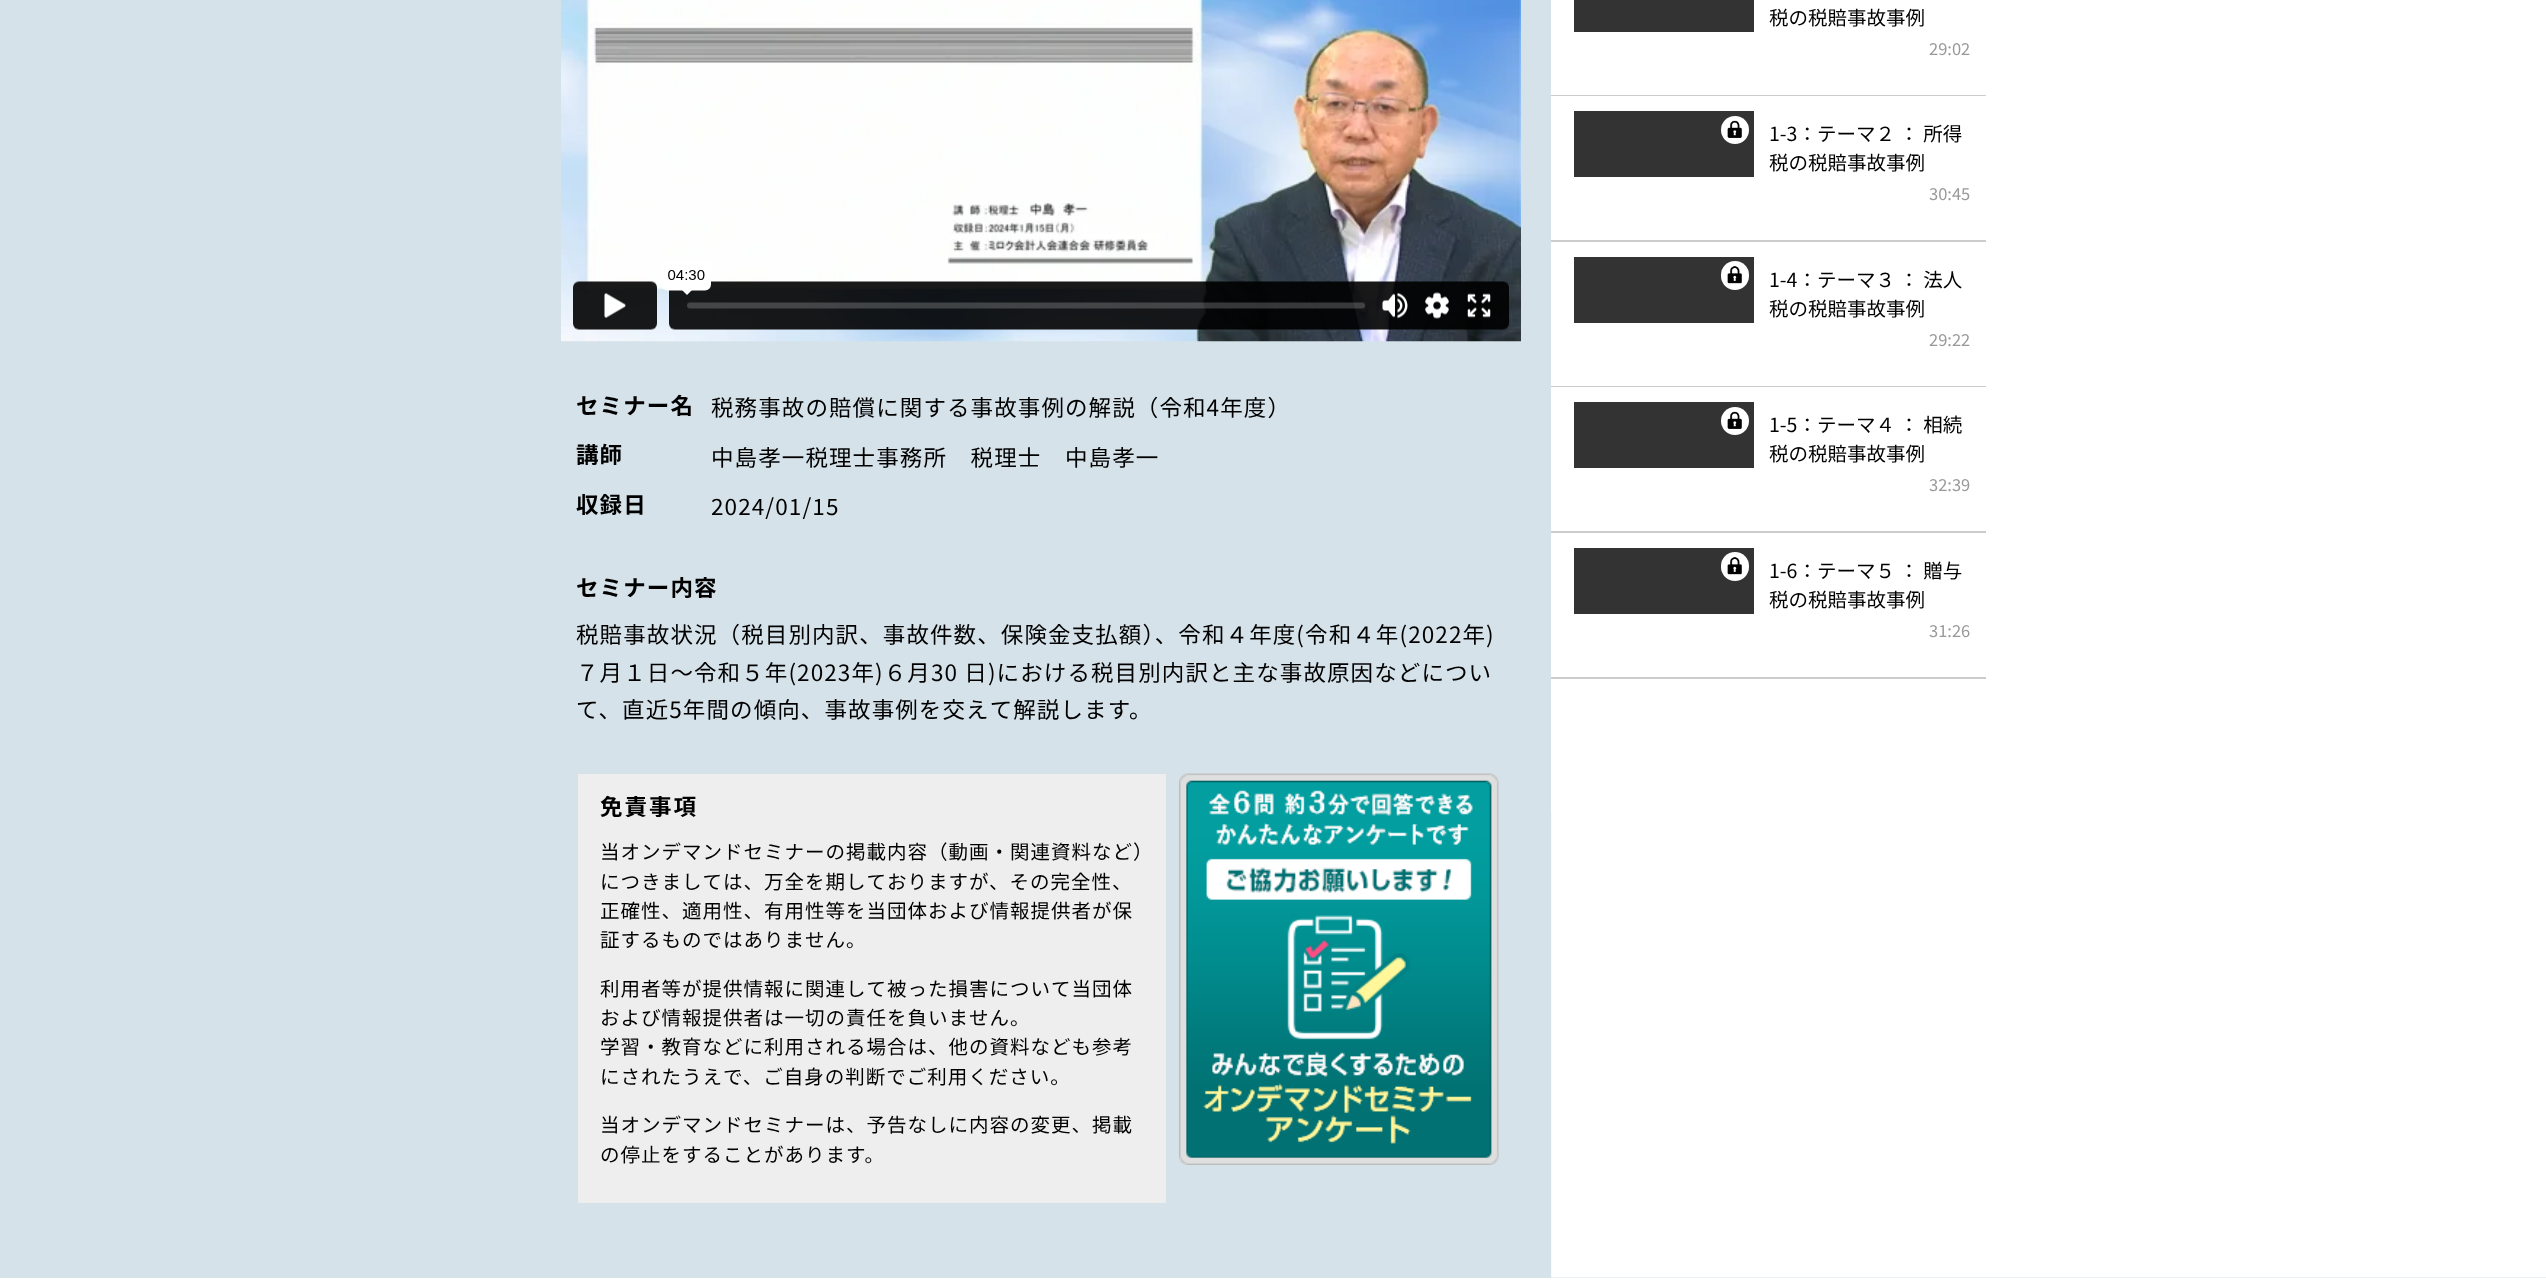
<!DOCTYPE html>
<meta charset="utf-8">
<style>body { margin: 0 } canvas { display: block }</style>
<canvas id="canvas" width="2546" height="1285"></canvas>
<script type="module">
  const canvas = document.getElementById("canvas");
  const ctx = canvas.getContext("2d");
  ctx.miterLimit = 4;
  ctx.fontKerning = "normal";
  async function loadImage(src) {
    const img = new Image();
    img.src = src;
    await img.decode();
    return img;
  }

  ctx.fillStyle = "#ffffff";
  ctx.fillRect(0, 0, 2546, 1285);
  ctx.fillStyle = "#d6e2e9";
  ctx.fillRect(0, 0, 2546, 1278);
  ctx.drawImage(await loadImage("img1.png"), 1551, 0, 995, 1278);
  ctx.fillStyle = "#ffffff";
  ctx.fillRect(1551, 0, 1, 813);
  ctx.fillStyle = "#cccccc";
  ctx.fillRect(1551, 95, 435, 1);
  ctx.fillStyle = "#333333";
  ctx.fillRect(1574, 0, 180, 32);
  ctx.font = "19.5px Noto Sans JP";
  ctx.fillStyle = "#000000";
  ctx.fillText("税の税賠事故事例", 1769, 25);
  ctx.font = "16.5px Noto Sans JP";
  ctx.fillStyle = "#999999";
  ctx.fillText("29:02", 1929, 55);
  ctx.fillStyle = "#cccccc";
  ctx.fillRect(1551, 240, 435, 2);
  ctx.fillStyle = "#333333";
  ctx.fillRect(1574, 111, 180, 66);
  ctx.fillStyle = "#ffffff";
  ctx.beginPath();
  ctx.arc(1735, 130, 14, 0, Math.PI * 2);
  ctx.fill();
  ctx.drawImage(await loadImage("img2.png"), 1727, 120, 15, 18);
  ctx.font = "19.5px Noto Sans JP";
  ctx.fillStyle = "#000000";
  ctx.fillText("1-3：テーマ２ ： 所得", 1769, 141);
  ctx.fillText("税の税賠事故事例", 1769, 170);
  ctx.font = "16.5px Noto Sans JP";
  ctx.fillStyle = "#999999";
  ctx.fillText("30:45", 1929, 200);
  ctx.fillStyle = "#cccccc";
  ctx.fillRect(1551, 386, 435, 1);
  ctx.fillStyle = "#333333";
  ctx.fillRect(1574, 257, 180, 66);
  ctx.fillStyle = "#ffffff";
  ctx.beginPath();
  ctx.roundRect(1721, 261, 28, 29, 14);
  ctx.fill();
  ctx.drawImage(await loadImage("img3.png"), 1727, 266, 15, 18);
  ctx.font = "19.5px Noto Sans JP";
  ctx.fillStyle = "#000000";
  ctx.fillText("1-4：テーマ３ ： 法人", 1769, 287);
  ctx.fillText("税の税賠事故事例", 1769, 316);
  ctx.font = "16.5px Noto Sans JP";
  ctx.fillStyle = "#999999";
  ctx.fillText("29:22", 1929, 346);
  ctx.fillStyle = "#cccccc";
  ctx.fillRect(1551, 531, 435, 2);
  ctx.fillStyle = "#333333";
  ctx.fillRect(1574, 402, 180, 66);
  ctx.fillStyle = "#ffffff";
  ctx.beginPath();
  ctx.arc(1735, 421, 14, 0, Math.PI * 2);
  ctx.fill();
  ctx.drawImage(await loadImage("img2.png"), 1727, 411, 15, 18);
  ctx.font = "19.5px Noto Sans JP";
  ctx.fillStyle = "#000000";
  ctx.fillText("1-5：テーマ４ ： 相続", 1769, 432);
  ctx.fillText("税の税賠事故事例", 1769, 461);
  ctx.font = "16.5px Noto Sans JP";
  ctx.fillStyle = "#999999";
  ctx.fillText("32:39", 1929, 491);
  ctx.fillStyle = "#cccccc";
  ctx.fillRect(1551, 677, 435, 2);
  ctx.fillStyle = "#333333";
  ctx.fillRect(1574, 548, 180, 66);
  ctx.fillStyle = "#ffffff";
  ctx.beginPath();
  ctx.roundRect(1721, 552, 28, 29, 14);
  ctx.fill();
  ctx.drawImage(await loadImage("img3.png"), 1727, 557, 15, 18);
  ctx.font = "19.5px Noto Sans JP";
  ctx.fillStyle = "#000000";
  ctx.fillText("1-6：テーマ５ ： 贈与", 1769, 578);
  ctx.fillText("税の税賠事故事例", 1769, 607);
  ctx.font = "16.5px Noto Sans JP";
  ctx.fillStyle = "#999999";
  ctx.fillText("31:26", 1929, 637);
  ctx.drawImage(await loadImage("img4.png"), 561, 0, 960, 342);
  ctx.letterSpacing = "1.1px";
  ctx.font = "bold 22.5px Noto Sans JP";
  ctx.fillStyle = "#000000";
  ctx.fillText("セミナー名", 576, 414);
  ctx.font = "22.5px Noto Sans JP";
  ctx.fillText("税務事故の賠償に関する事故事例の解説（令和4年度）", 711, 416);
  ctx.font = "bold 22.5px Noto Sans JP";
  ctx.fillText("講師", 576, 463);
  ctx.font = "22.5px Noto Sans JP";
  ctx.fillText("中島孝一税理士事務所　税理士　中島孝一", 711, 466);
  ctx.font = "bold 22.5px Noto Sans JP";
  ctx.fillText("収録日", 576, 513);
  ctx.font = "22.5px Noto Sans JP";
  ctx.fillText("2024/01/15", 711, 515);
  ctx.font = "bold 22.5px Noto Sans JP";
  ctx.fillText("セミナー内容", 576, 596);
  ctx.font = "22.5px Noto Sans JP";
  ctx.fillText("税賠事故状況（税目別内訳、事故件数、保険金支払額）、令和４年度(令和４年(2022年)", 576, 643);
  ctx.fillText("７月１日～令和５年(2023年)６月30 日)における税目別内訳と主な事故原因などについ", 576, 681);
  ctx.fillText("て、直近5年間の傾向、事故事例を交えて解説します。", 576, 718);
  ctx.fillStyle = "#eeeeee";
  ctx.fillRect(578, 774, 588, 429);
  ctx.letterSpacing = "2px";
  ctx.font = "bold 22.5px Noto Sans JP";
  ctx.fillStyle = "#000000";
  ctx.fillText("免責事項", 600, 815);
  ctx.letterSpacing = "1px";
  ctx.font = "19.5px Noto Sans JP";
  ctx.fillText("当オンデマンドセミナーの掲載内容（動画・関連資料など）", 600, 859);
  ctx.fillText("につきましては、万全を期しておりますが、その完全性、", 600, 889);
  ctx.fillText("正確性、適用性、有用性等を当団体および情報提供者が保", 600, 918);
  ctx.fillText("証するものではありません。", 600, 947);
  ctx.fillText("利用者等が提供情報に関連して被った損害について当団体", 600, 996);
  ctx.fillText("および情報提供者は一切の責任を負いません。", 600, 1025);
  ctx.fillText("学習・教育などに利用される場合は、他の資料なども参考", 600, 1054);
  ctx.fillText("にされたうえで、ご自身の判断でご利用ください。", 600, 1084);
  ctx.fillText("当オンデマンドセミナーは、予告なしに内容の変更、掲載", 600, 1132);
  ctx.fillText("の停止をすることがあります。", 600, 1162);
  ctx.drawImage(await loadImage("img5.png"), 1179, 773, 320, 392);
</script>
